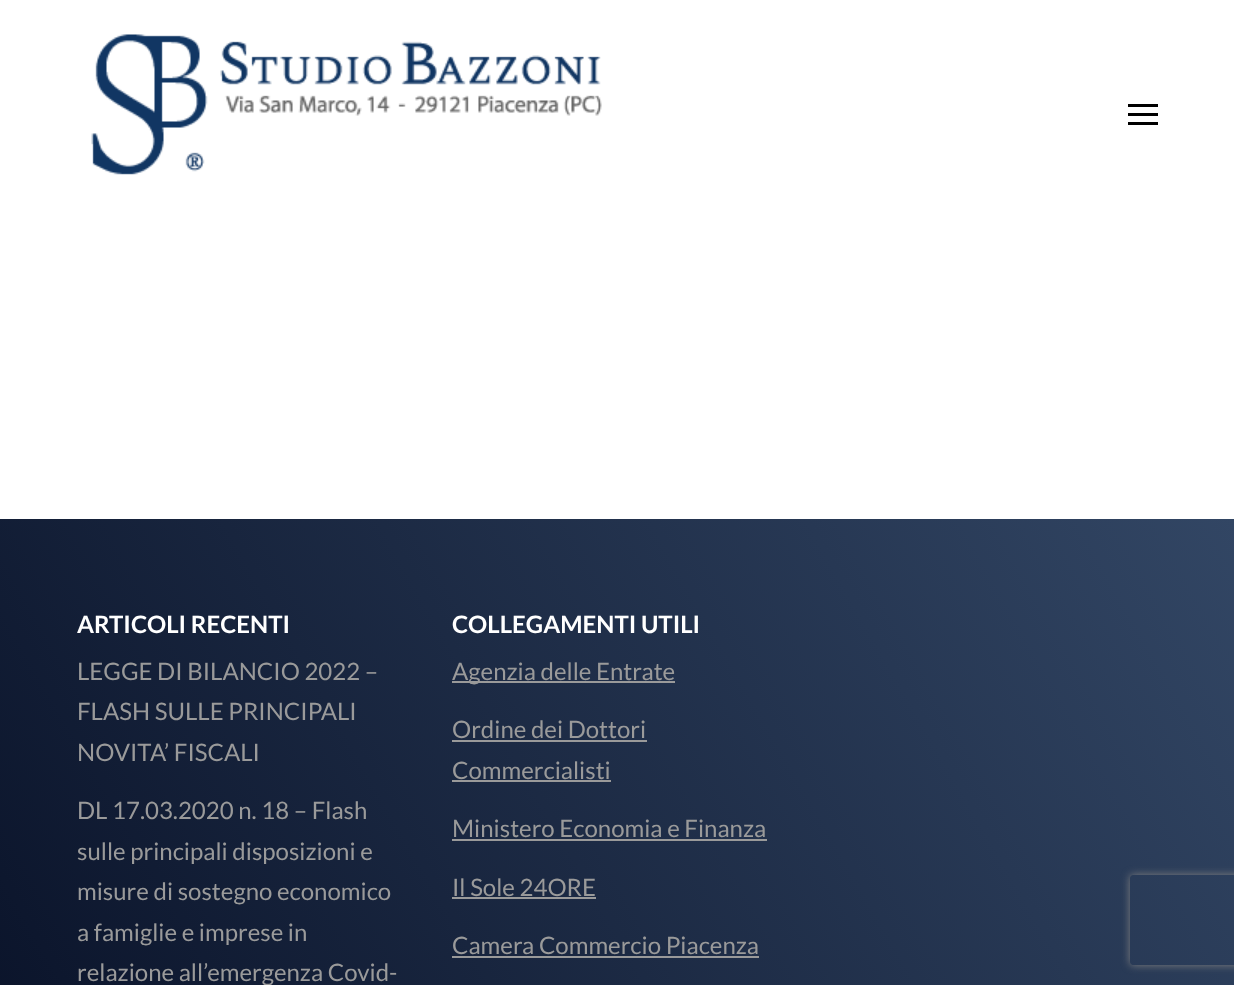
<!DOCTYPE html>
<meta charset="utf-8">
<style>body { margin: 0 } canvas { display: block }</style>
<canvas id="canvas" width="1234" height="985"></canvas>
<script type="module">
  const canvas = document.getElementById("canvas");
  const ctx = canvas.getContext("2d");
  ctx.miterLimit = 4;
  ctx.fontKerning = "normal";
  async function loadImage(src) {
    const img = new Image();
    img.src = src;
    await img.decode();
    return img;
  }
  let gradient;

  ctx.fillStyle = "#ffffff";
  ctx.fillRect(0, 0, 1234, 985);
  ctx.drawImage(await loadImage("img1.png"), 91, 34, 511, 141);
  ctx.fillStyle = "#000000";
  ctx.fillRect(1128, 104, 30, 3);
  ctx.fillRect(1128, 113, 30, 3);
  ctx.fillRect(1128, 122, 30, 3);
  gradient = ctx.createLinearGradient(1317, 662, -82, 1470);
  gradient.addColorStop(0, "#324664");
  gradient.addColorStop(1, "#02091e");
  ctx.fillStyle = gradient;
  ctx.fillRect(0, 519, 1234, 466);
  ctx.font = "bold 24px Lato";
  ctx.fillStyle = "#ffffff";
  ctx.fillText("ARTICOLI RECENTI", 77, 633);
  ctx.font = "24px Lato";
  ctx.fillStyle = "#9a9a9a";
  ctx.fillText("LEGGE DI BILANCIO 2022 –", 77, 680);
  ctx.fillText("FLASH SULLE PRINCIPALI", 77, 720);
  ctx.fillText("NOVITA’ FISCALI", 77, 761);
  ctx.fillText("DL 17.03.2020 n. 18 – Flash", 77, 819);
  ctx.fillText("sulle principali disposizioni e", 77, 860);
  ctx.fillText("misure di sostegno economico", 77, 900);
  ctx.fillText("a famiglie e imprese in", 77, 941);
  ctx.fillText("relazione all’emergenza Covid-", 77, 981);
  ctx.font = "bold 24px Lato";
  ctx.fillStyle = "#ffffff";
  ctx.fillText("COLLEGAMENTI UTILI", 452, 633);
  ctx.fillStyle = "#9a9a9a";
  ctx.fillRect(452, 681, 223, 2);
  ctx.font = "24px Lato";
  ctx.fillText("Agenzia delle Entrate", 452, 680);
  ctx.fillText("Ordine dei Dottori", 452, 738);
  ctx.fillRect(452, 740, 195, 2);
  ctx.fillText("Commercialisti", 452, 779);
  ctx.fillRect(452, 780, 159, 2);
  ctx.fillText("Ministero Economia e Finanza", 452, 837);
  ctx.fillRect(452, 839, 315, 2);
  ctx.fillText("Il Sole 24ORE", 452, 896);
  ctx.fillRect(452, 897, 144, 2);
  ctx.fillText("Camera Commercio Piacenza", 452, 954);
  ctx.fillRect(452, 956, 307, 2);
  ctx.save();
  ctx.beginPath();
  ctx.moveTo(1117, 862);
  ctx.lineTo(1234, 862);
  ctx.lineTo(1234, 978);
  ctx.lineTo(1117, 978);
  ctx.closePath();
  ctx.moveTo(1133, 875);
  ctx.lineTo(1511, 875);
  ctx.bezierCurveTo(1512.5, 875, 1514, 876.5, 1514, 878);
  ctx.lineTo(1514, 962);
  ctx.bezierCurveTo(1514, 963.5, 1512.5, 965, 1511, 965);
  ctx.lineTo(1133, 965);
  ctx.bezierCurveTo(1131.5, 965, 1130, 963.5, 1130, 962);
  ctx.lineTo(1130, 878);
  ctx.bezierCurveTo(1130, 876.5, 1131.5, 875, 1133, 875);
  ctx.closePath();
  ctx.clip("evenodd");
  ctx.fillStyle = "#808080";
  ctx.filter = "blur(4px)";
  ctx.beginPath();
  ctx.roundRect(1130, 875, 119, 90, 3);
  ctx.fill();
  ctx.filter = "none";
  ctx.restore();
</script>
